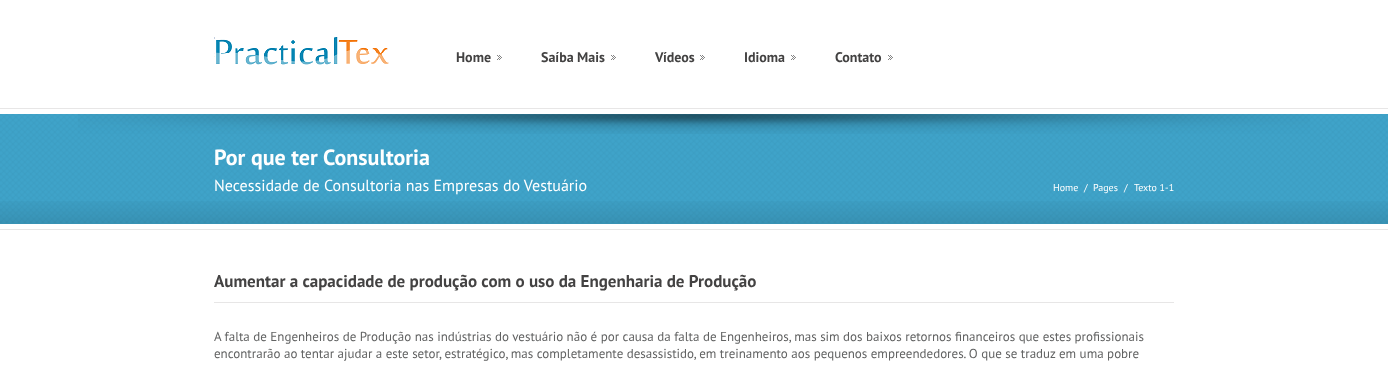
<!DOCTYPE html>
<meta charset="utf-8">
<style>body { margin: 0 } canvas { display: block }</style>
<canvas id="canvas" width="1388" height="370"></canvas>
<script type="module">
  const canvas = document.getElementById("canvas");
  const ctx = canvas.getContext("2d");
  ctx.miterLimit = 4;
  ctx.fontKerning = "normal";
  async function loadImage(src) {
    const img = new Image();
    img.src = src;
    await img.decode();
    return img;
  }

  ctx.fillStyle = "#ffffff";
  ctx.fillRect(0, 0, 1388, 370);
  ctx.drawImage(await loadImage("img1.png"), 214, 37, 175, 28);
  ctx.font = "bold 14px PT Sans";
  ctx.fillStyle = "#434242";
  ctx.fillText("Home", 456, 62);
  ctx.drawImage(await loadImage("img2.png"), 497, 55, 5, 5);
  ctx.fillText("Saíba Mais", 541, 62);
  ctx.drawImage(await loadImage("img2.png"), 611, 55, 5, 5);
  ctx.fillText("Vídeos", 655, 62);
  ctx.drawImage(await loadImage("img2.png"), 700, 55, 5, 5);
  ctx.fillText("Idioma", 744, 62);
  ctx.drawImage(await loadImage("img2.png"), 791, 55, 5, 5);
  ctx.fillText("Contato", 835, 62);
  ctx.drawImage(await loadImage("img2.png"), 888, 55, 5, 5);
  ctx.fillStyle = "#3fa3c9";
  ctx.fillRect(0, 114, 1388, 110);
  ctx.drawImage(await loadImage("img3.png"), 0, 114, 1388, 109);
  ctx.fillStyle = "#e7e6e6";
  ctx.fillRect(0, 108, 1388, 1);
  ctx.drawImage(await loadImage("img4.png"), 78, 114, 1232, 20);
  ctx.font = "bold 22px PT Sans";
  ctx.fillStyle = "#ffffff";
  ctx.fillText("Por que ter Consultoria", 214, 165);
  ctx.font = "16px PT Sans";
  ctx.fillText("Necessidade de Consultoria nas Empresas do Vestuário", 214, 191);
  ctx.font = "10px PT Sans";
  ctx.fillText("Home", 1053, 191);
  ctx.fillText("/", 1084, 191);
  ctx.fillText("Pages", 1093, 191);
  ctx.fillText("/", 1124, 191);
  ctx.fillText("Texto 1-1", 1134, 191);
  ctx.drawImage(await loadImage("img5.png"), 0, 201, 1388, 23);
  ctx.fillStyle = "#e7e6e6";
  ctx.fillRect(0, 229, 1388, 1);
  ctx.fillRect(214, 302, 960, 1);
  ctx.font = "bold 17px PT Sans";
  ctx.fillStyle = "#434242";
  ctx.fillText("Aumentar a capacidade de produção com o uso da Engenharia de Produção", 214, 287);
  ctx.font = "13px PT Sans";
  ctx.fillStyle = "#626363";
  ctx.fillText("A falta de Engenheiros de Produção nas indústrias do vestuário não é por causa da falta de Engenheiros, mas sim dos baixos retornos financeiros que estes profissionais", 214, 341);
  ctx.fillText("encontrarão ao tentar ajudar a este setor, estratégico, mas completamente desassistido, em treinamento aos pequenos empreendedores. O que se traduz em uma pobre", 214, 358);
</script>
